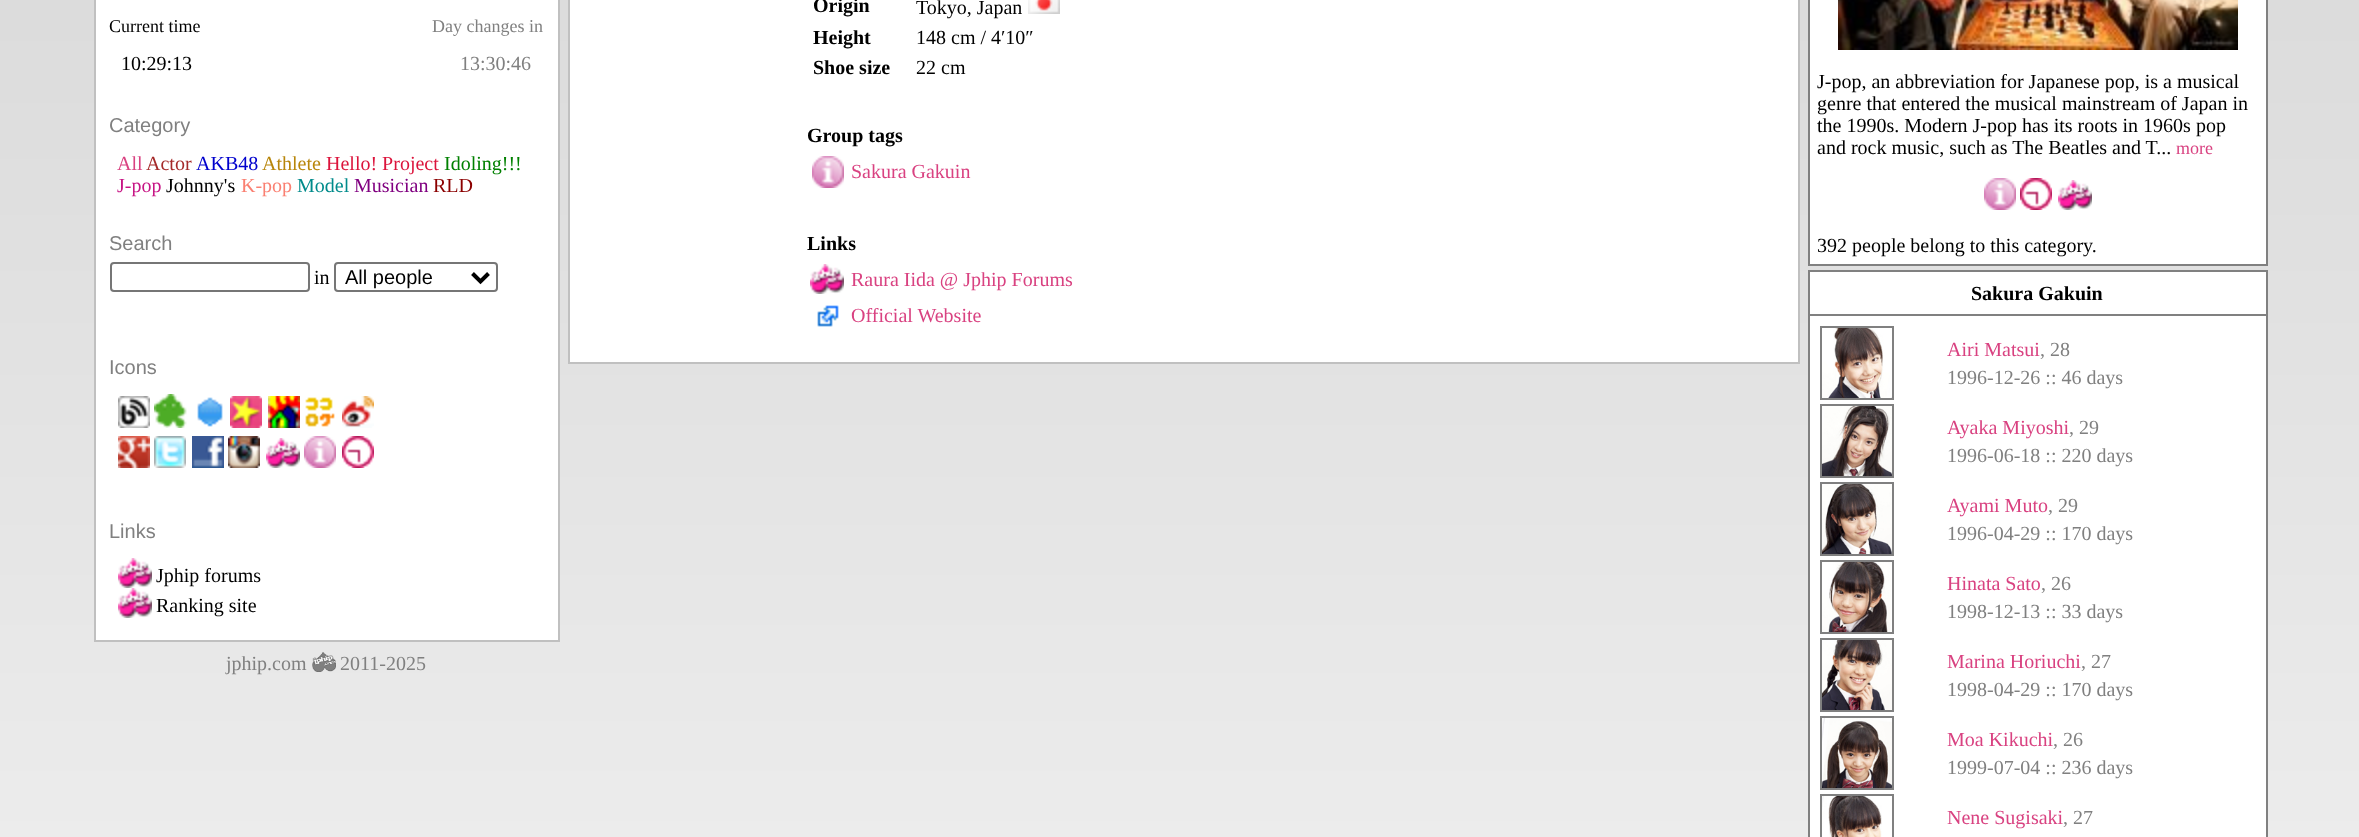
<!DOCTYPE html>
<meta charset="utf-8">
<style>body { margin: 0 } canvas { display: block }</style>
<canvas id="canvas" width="2359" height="837"></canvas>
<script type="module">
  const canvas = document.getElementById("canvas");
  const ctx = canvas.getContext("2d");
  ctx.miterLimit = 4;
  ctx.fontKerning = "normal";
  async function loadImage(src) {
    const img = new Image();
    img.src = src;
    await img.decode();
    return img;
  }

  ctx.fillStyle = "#ffffff";
  ctx.fillRect(0, 0, 2359, 837);
  ctx.drawImage(await loadImage("img1.png"), 0, 0, 2359, 837);
  ctx.fillRect(96, 0, 462, 640);
  ctx.fillStyle = "#c0c0c0";
  ctx.fillRect(558, 0, 2, 642);
  ctx.fillRect(94, 640, 466, 2);
  ctx.fillRect(94, 0, 2, 642);
  ctx.font = "18px Liberation Serif";
  ctx.fillStyle = "#000000";
  ctx.fillText("Current time", 109, 32);
  ctx.fillStyle = "#808080";
  ctx.fillText("Day changes in", 432, 32);
  ctx.font = "20px Liberation Serif";
  ctx.fillStyle = "#000000";
  ctx.fillText("10:29:13", 121, 70);
  ctx.fillStyle = "#808080";
  ctx.fillText("13:30:46", 460, 70);
  ctx.font = "20px Liberation Sans";
  ctx.fillText("Category", 109, 132);
  ctx.font = "20px Liberation Serif";
  ctx.fillStyle = "#d94281";
  ctx.fillText("All", 117, 170);
  ctx.fillStyle = "#a52a2a";
  ctx.fillText("Actor", 146, 170);
  ctx.fillStyle = "#0000cd";
  ctx.fillText("AKB48", 196, 170);
  ctx.fillStyle = "#b8860b";
  ctx.fillText("Athlete", 262, 170);
  ctx.fillStyle = "#dc143c";
  ctx.fillText("Hello! Project", 326, 170);
  ctx.fillStyle = "#008000";
  ctx.fillText("Idoling!!!", 444, 170);
  ctx.fillStyle = "#c71585";
  ctx.fillText("J-pop", 117, 192);
  ctx.fillStyle = "#000000";
  ctx.fillText("Johnny's", 166, 192);
  ctx.fillStyle = "#fa8072";
  ctx.fillText("K-pop", 241, 192);
  ctx.fillStyle = "#008b8b";
  ctx.fillText("Model", 297, 192);
  ctx.fillStyle = "#800080";
  ctx.fillText("Musician", 354, 192);
  ctx.fillStyle = "#8b0000";
  ctx.fillText("RLD", 433, 192);
  ctx.font = "20px Liberation Sans";
  ctx.fillStyle = "#808080";
  ctx.fillText("Search", 109, 250);
  ctx.beginPath();
  ctx.roundRect(111, 263, 198, 28, 3);
  ctx.strokeStyle = "#767676";
  ctx.lineWidth = 2;
  ctx.stroke();
  ctx.font = "20px Liberation Serif";
  ctx.fillStyle = "#000000";
  ctx.fillText("in", 314, 284);
  ctx.beginPath();
  ctx.roundRect(335, 263, 162, 28, 3);
  ctx.stroke();
  ctx.beginPath();
  ctx.moveTo(472.5, 273.5);
  ctx.lineTo(480.5, 281.5);
  ctx.lineTo(488.5, 273.5);
  ctx.strokeStyle = "#000000";
  ctx.lineWidth = 4;
  ctx.stroke();
  ctx.font = "20px Liberation Sans";
  ctx.fillText("All people", 345, 284);
  ctx.fillStyle = "#808080";
  ctx.fillText("Icons", 109, 374);
  ctx.drawImage(await loadImage("img2.png"), 118, 396, 32, 32);
  ctx.drawImage(await loadImage("img3.png"), 154, 394, 33, 34);
  ctx.drawImage(await loadImage("img4.png"), 197, 397, 26, 30);
  ctx.drawImage(await loadImage("img5.png"), 230, 396, 32, 32);
  ctx.drawImage(await loadImage("img6.png"), 268, 396, 32, 32);
  ctx.drawImage(await loadImage("img7.png"), 305, 397, 30, 30);
  ctx.drawImage(await loadImage("img8.png"), 342, 396, 32, 32);
  ctx.drawImage(await loadImage("img9.png"), 118, 436, 32, 32);
  ctx.drawImage(await loadImage("img10.png"), 154, 436, 32, 32);
  ctx.drawImage(await loadImage("img11.png"), 192, 436, 32, 32);
  ctx.drawImage(await loadImage("img12.png"), 228, 436, 32, 32);
  ctx.drawImage(await loadImage("img13.png"), 266, 438, 34, 30);
  ctx.drawImage(await loadImage("img14.png"), 304, 436, 32, 32);
  ctx.drawImage(await loadImage("img15.png"), 342, 436, 32, 32);
  ctx.fillText("Links", 109, 538);
  ctx.drawImage(await loadImage("img13.png"), 118, 558, 34, 30);
  ctx.font = "20px Liberation Serif";
  ctx.fillStyle = "#000000";
  ctx.fillText("Jphip forums", 156, 582);
  ctx.drawImage(await loadImage("img13.png"), 118, 588, 34, 30);
  ctx.fillText("Ranking site", 156, 612);
  ctx.fillStyle = "#808080";
  ctx.fillText("jphip.com", 226, 670);
  ctx.drawImage(await loadImage("img16.png"), 312, 652, 24, 20);
  ctx.fillText("2011-2025", 340, 670);
  ctx.fillStyle = "#ffffff";
  ctx.beginPath();
  ctx.rect(569, -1, 1230, 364);
  ctx.fill();
  ctx.strokeStyle = "#c0c0c0";
  ctx.lineWidth = 2;
  ctx.stroke();
  ctx.font = "bold 20px Liberation Serif";
  ctx.fillStyle = "#000000";
  ctx.fillText("Origin", 813, 12);
  ctx.font = "20px Liberation Serif";
  ctx.fillText("Tokyo, Japan", 916, 14);
  ctx.drawImage(await loadImage("img17.png"), 1028, 0, 32, 14);
  ctx.font = "bold 20px Liberation Serif";
  ctx.fillText("Height", 813, 44);
  ctx.font = "20px Liberation Serif";
  ctx.fillText("148 cm / 4′10″", 916, 44);
  ctx.font = "bold 20px Liberation Serif";
  ctx.fillText("Shoe size", 813, 74);
  ctx.font = "20px Liberation Serif";
  ctx.fillText("22 cm", 916, 74);
  ctx.font = "bold 20px Liberation Serif";
  ctx.fillText("Group tags", 807, 142);
  ctx.drawImage(await loadImage("img14.png"), 812, 156, 32, 32);
  ctx.font = "20px Liberation Serif";
  ctx.fillStyle = "#d94281";
  ctx.fillText("Sakura Gakuin", 851, 178);
  ctx.font = "bold 20px Liberation Serif";
  ctx.fillStyle = "#000000";
  ctx.fillText("Links", 807, 250);
  ctx.drawImage(await loadImage("img13.png"), 810, 264, 34, 30);
  ctx.font = "20px Liberation Serif";
  ctx.fillStyle = "#d94281";
  ctx.fillText("Raura Iida @ Jphip Forums", 851, 286);
  ctx.drawImage(await loadImage("img18.png"), 817, 305, 22, 22);
  ctx.fillText("Official Website", 851, 322);
  ctx.fillStyle = "#ffffff";
  ctx.fillRect(1810, 0, 456, 264);
  ctx.fillStyle = "#808080";
  ctx.fillRect(2266, 0, 2, 266);
  ctx.fillRect(1808, 264, 460, 2);
  ctx.fillRect(1808, 0, 2, 266);
  ctx.drawImage(await loadImage("img19.png"), 1838, 0, 400, 50);
  ctx.fillStyle = "#000000";
  ctx.fillText("J-pop, an abbreviation for Japanese pop, is a musical", 1817, 88);
  ctx.fillText("genre that entered the musical mainstream of Japan in", 1817, 110);
  ctx.fillText("the 1990s. Modern J-pop has its roots in 1960s pop", 1817, 132);
  ctx.fillText("and rock music, such as The Beatles and T...", 1817, 154);
  ctx.font = "18px Liberation Serif";
  ctx.fillStyle = "#d94281";
  ctx.fillText("more", 2176, 154);
  ctx.drawImage(await loadImage("img14.png"), 1984, 178, 32, 32);
  ctx.drawImage(await loadImage("img15.png"), 2020, 178, 32, 32);
  ctx.drawImage(await loadImage("img13.png"), 2058, 180, 34, 30);
  ctx.font = "20px Liberation Serif";
  ctx.fillStyle = "#000000";
  ctx.fillText("392 people belong to this category.", 1817, 252);
  ctx.fillStyle = "#ffffff";
  ctx.fillRect(1810, 272, 456, 42);
  ctx.fillStyle = "#808080";
  ctx.fillRect(1808, 270, 460, 2);
  ctx.fillRect(1808, 314, 460, 2);
  ctx.fillRect(2266, 314, 2, 523);
  ctx.fillRect(2266, 270, 2, 46);
  ctx.fillRect(1808, 314, 2, 523);
  ctx.fillRect(1808, 270, 2, 46);
  ctx.font = "bold 20px Liberation Serif";
  ctx.fillStyle = "#000000";
  ctx.fillText("Sakura Gakuin", 1971, 300);
  ctx.fillStyle = "#ffffff";
  ctx.fillRect(1810, 316, 456, 521);
  ctx.strokeStyle = "#808080";
  ctx.strokeRect(1821, 327, 72, 72);
  ctx.drawImage(await loadImage("img20.png"), 1822, 328, 70, 70);
  ctx.font = "20px Liberation Serif";
  ctx.fillStyle = "#d94281";
  ctx.fillText("Airi Matsui", 1947, 356);
  ctx.fillStyle = "#808080";
  ctx.fillText(", 28", 2040, 356);
  ctx.fillText("1996-12-26 :: 46 days", 1947, 384);
  ctx.strokeRect(1821, 405, 72, 72);
  ctx.drawImage(await loadImage("img21.png"), 1822, 406, 70, 70);
  ctx.fillStyle = "#d94281";
  ctx.fillText("Ayaka Miyoshi", 1947, 434);
  ctx.fillStyle = "#808080";
  ctx.fillText(", 29", 2069, 434);
  ctx.fillText("1996-06-18 :: 220 days", 1947, 462);
  ctx.strokeRect(1821, 483, 72, 72);
  ctx.drawImage(await loadImage("img22.png"), 1822, 484, 70, 70);
  ctx.fillStyle = "#d94281";
  ctx.fillText("Ayami Muto", 1947, 512);
  ctx.fillStyle = "#808080";
  ctx.fillText(", 29", 2048, 512);
  ctx.fillText("1996-04-29 :: 170 days", 1947, 540);
  ctx.strokeRect(1821, 561, 72, 72);
  ctx.drawImage(await loadImage("img23.png"), 1822, 562, 69, 70);
  ctx.fillStyle = "#d94281";
  ctx.fillText("Hinata Sato", 1947, 590);
  ctx.fillStyle = "#808080";
  ctx.fillText(", 26", 2041, 590);
  ctx.fillText("1998-12-13 :: 33 days", 1947, 618);
  ctx.strokeRect(1821, 639, 72, 72);
  ctx.drawImage(await loadImage("img24.png"), 1822, 640, 70, 70);
  ctx.fillStyle = "#d94281";
  ctx.fillText("Marina Horiuchi", 1947, 668);
  ctx.fillStyle = "#808080";
  ctx.fillText(", 27", 2081, 668);
  ctx.fillText("1998-04-29 :: 170 days", 1947, 696);
  ctx.strokeRect(1821, 717, 72, 72);
  ctx.drawImage(await loadImage("img25.png"), 1822, 718, 70, 70);
  ctx.fillStyle = "#d94281";
  ctx.fillText("Moa Kikuchi", 1947, 746);
  ctx.fillStyle = "#808080";
  ctx.fillText(", 26", 2053, 746);
  ctx.fillText("1999-07-04 :: 236 days", 1947, 774);
  ctx.strokeRect(1821, 795, 72, 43);
  ctx.drawImage(await loadImage("img26.png"), 1822, 796, 60, 41);
  ctx.fillStyle = "#d94281";
  ctx.fillText("Nene Sugisaki", 1947, 824);
  ctx.fillStyle = "#808080";
  ctx.fillText(", 27", 2063, 824);
</script>
